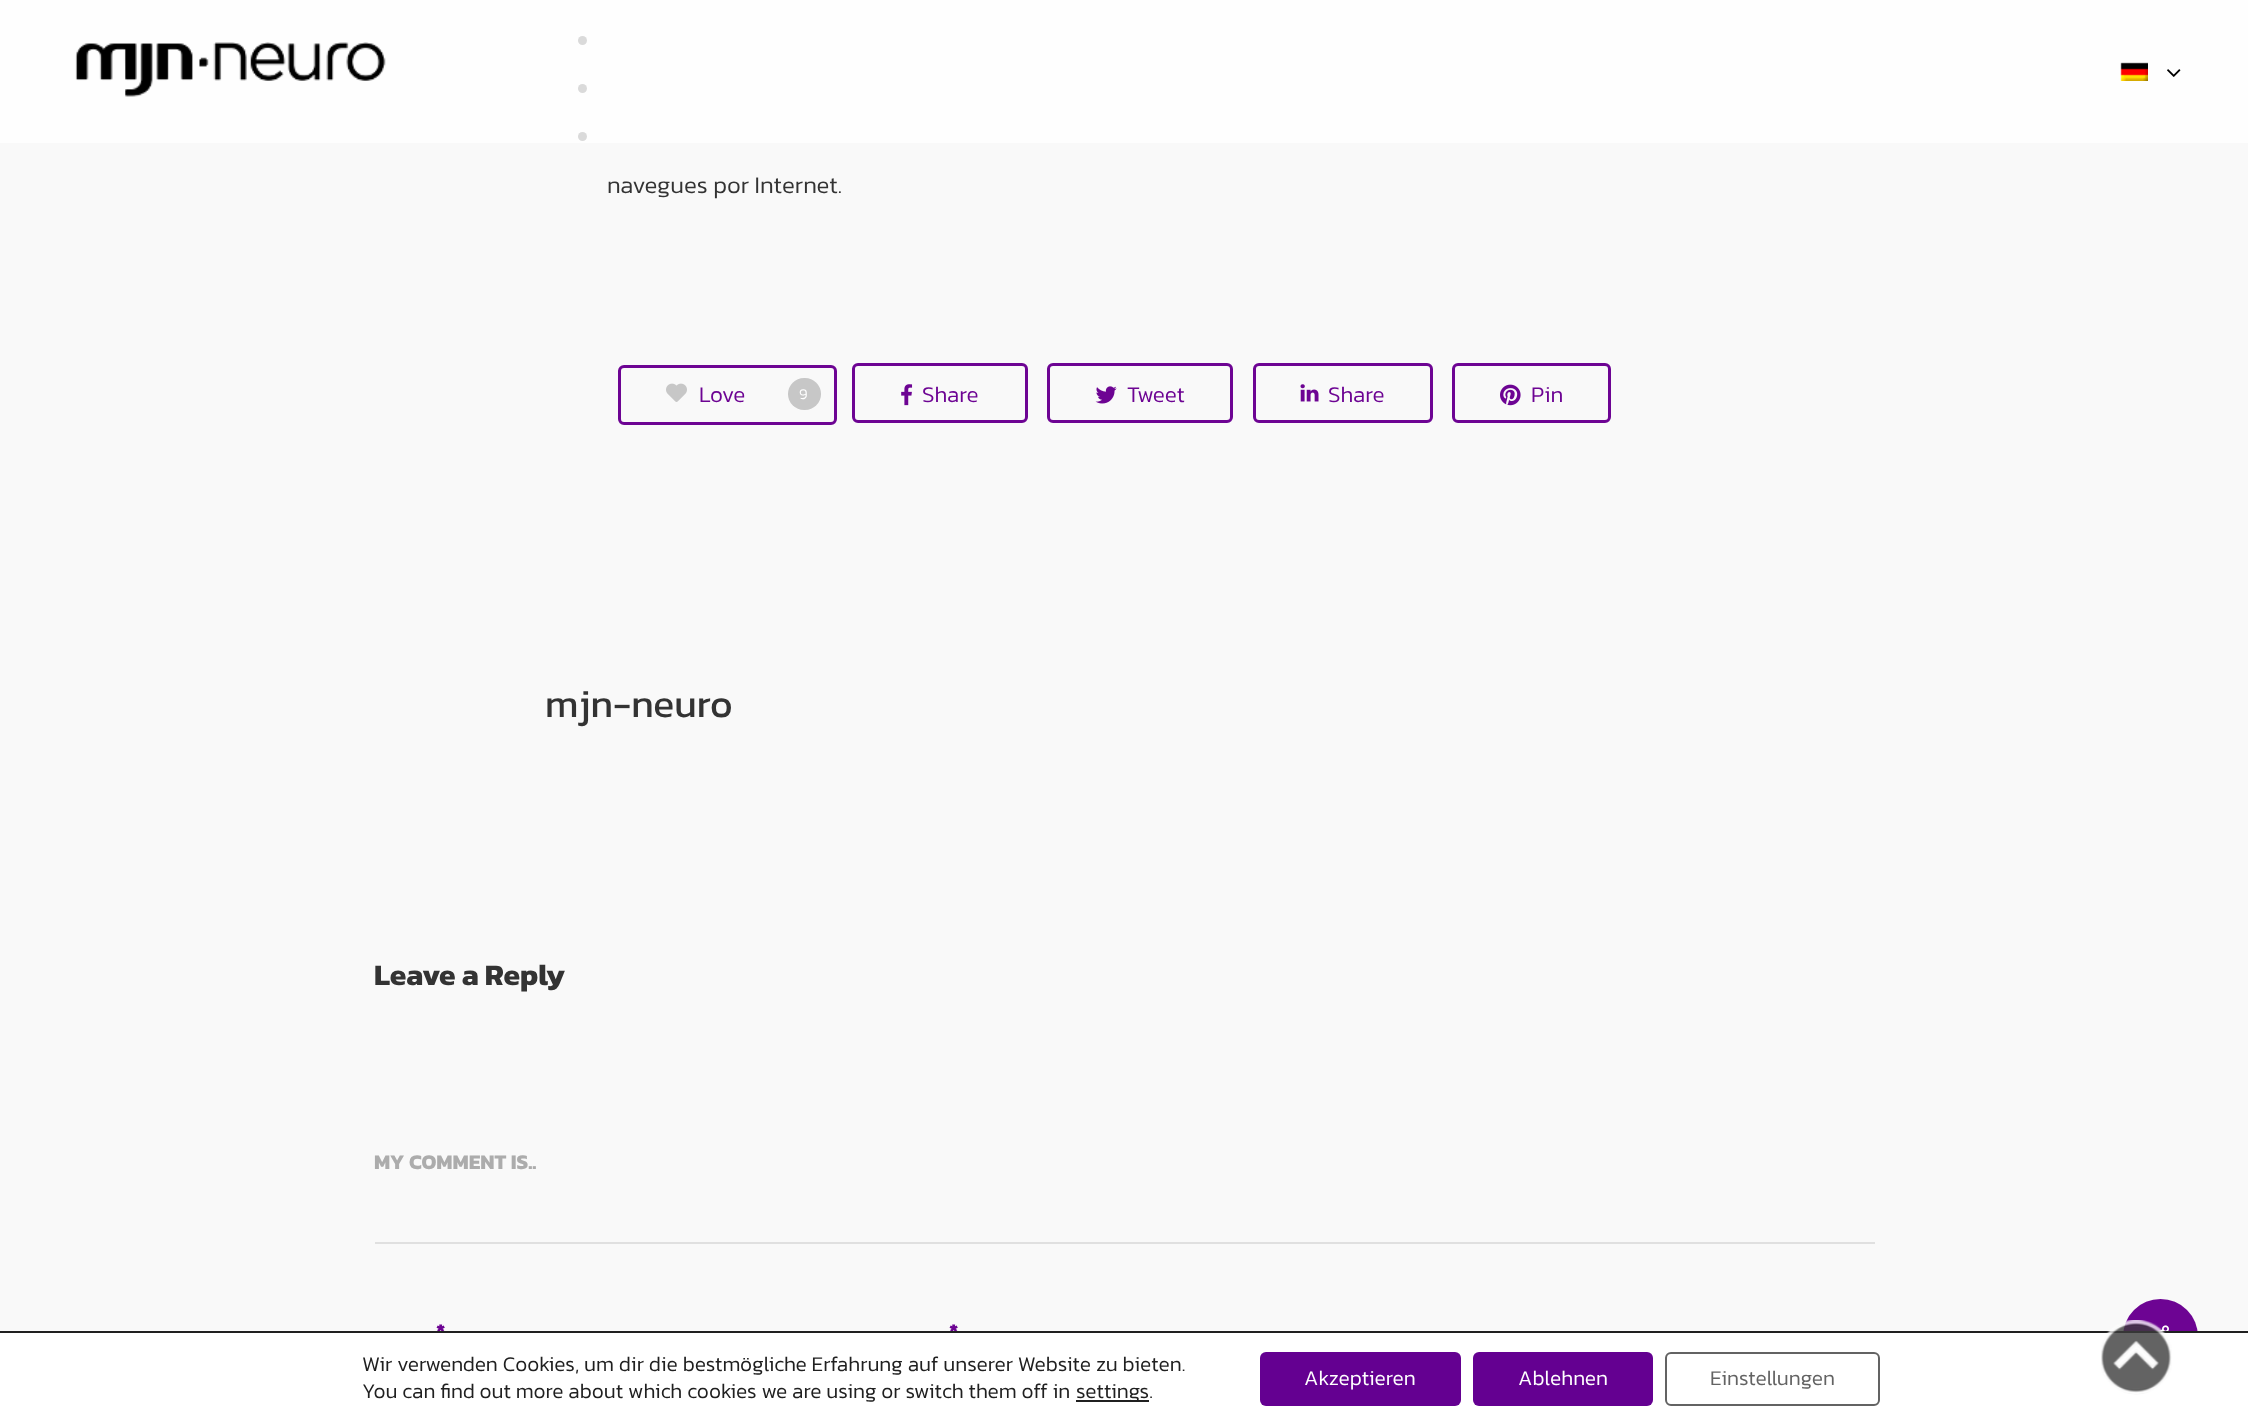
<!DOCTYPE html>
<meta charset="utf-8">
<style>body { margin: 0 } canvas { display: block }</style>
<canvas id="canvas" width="2248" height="1425"></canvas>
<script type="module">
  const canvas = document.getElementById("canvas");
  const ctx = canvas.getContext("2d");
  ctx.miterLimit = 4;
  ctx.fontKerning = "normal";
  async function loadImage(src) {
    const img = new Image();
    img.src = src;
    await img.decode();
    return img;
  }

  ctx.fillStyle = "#f9f9f9";
  ctx.fillRect(0, 0, 2248, 1425);
  ctx.fillStyle = "#333333";
  ctx.beginPath();
  ctx.arc(582.5, 40.5, 4.5, 0, Math.PI * 2);
  ctx.fill();
  ctx.beginPath();
  ctx.arc(582.5, 88.5, 4.5, 0, Math.PI * 2);
  ctx.fill();
  ctx.beginPath();
  ctx.arc(582.5, 136.5, 4.5, 0, Math.PI * 2);
  ctx.fill();
  ctx.fillStyle = "rgba(255, 255, 255, 0.82)";
  ctx.fillRect(0, 0, 2248, 143);
  ctx.drawImage(await loadImage("img1.png"), 75, 42, 311, 55);
  ctx.drawImage(await loadImage("img2.png"), 2120, 62, 28, 19);
  ctx.drawImage(await loadImage("img3.png"), 2167, 69, 14, 8);
  ctx.font = "300 24px Kanit";
  ctx.fillStyle = "#333333";
  ctx.fillText("navegues por Internet.", 607, 193);
  ctx.beginPath();
  ctx.roundRect(619.5, 366.5, 216, 57, 4.5);
  ctx.strokeStyle = "#6d0493";
  ctx.lineWidth = 3;
  ctx.stroke();
  ctx.drawImage(await loadImage("img4.png"), 666, 383, 21, 19);
  ctx.font = "300 22.5px Kanit";
  ctx.fillStyle = "#6d0493";
  ctx.fillText("Love", 699, 402);
  ctx.fillStyle = "#c7c7c7";
  ctx.beginPath();
  ctx.roundRect(788, 378, 33, 32, 16);
  ctx.fill();
  ctx.font = "300 15px Kanit";
  ctx.fillStyle = "#ffffff";
  ctx.fillText("9", 799, 399);
  ctx.beginPath();
  ctx.roundRect(853.5, 364.5, 173, 57, 4.5);
  ctx.stroke();
  ctx.drawImage(await loadImage("img5.png"), 901, 384, 12, 22);
  ctx.font = "300 22.5px Kanit";
  ctx.fillStyle = "#6d0493";
  ctx.fillText("Share", 922, 402);
  ctx.beginPath();
  ctx.roundRect(1048.5, 364.5, 183, 57, 4.5);
  ctx.stroke();
  ctx.drawImage(await loadImage("img6.png"), 1095, 386, 22, 18);
  ctx.fillText("Tweet", 1127, 402);
  ctx.beginPath();
  ctx.roundRect(1254.5, 364.5, 177, 57, 4.5);
  ctx.stroke();
  ctx.drawImage(await loadImage("img7.png"), 1300, 384, 19, 18);
  ctx.fillText("Share", 1328, 402);
  ctx.beginPath();
  ctx.roundRect(1453.5, 364.5, 156, 57, 4.5);
  ctx.stroke();
  ctx.drawImage(await loadImage("img8.png"), 1500, 384, 21, 22);
  ctx.fillText("Pin", 1531, 402);
  ctx.font = "39px Kanit";
  ctx.fillStyle = "#333333";
  ctx.fillText("mjn-neuro", 545, 717);
  ctx.font = "bold 30px Kanit";
  ctx.fillText("Leave a Reply", 374, 985);
  ctx.font = "bold 21px Kanit";
  ctx.fillStyle = "#acacac";
  ctx.fillText("MY COMMENT IS..", 374, 1169);
  ctx.fillStyle = "#e0e0e0";
  ctx.fillRect(375, 1242, 1500, 2);
  ctx.fillStyle = "#6d0493";
  ctx.fillText("*", 436, 1338);
  ctx.fillText("*", 949, 1338);
  ctx.beginPath();
  ctx.arc(2160.5, 1336.5, 37.5, 0, Math.PI * 2);
  ctx.fill();
  ctx.drawImage(await loadImage("img9.png"), 2159, 1325, 10, 6);
  ctx.fillStyle = "#ffffff";
  ctx.fillRect(0, 1333, 2248, 92);
  ctx.fillStyle = "#202020";
  ctx.fillRect(0, 1331, 2248, 2);
  ctx.font = "300 21px Kanit";
  ctx.fillText("Wir verwenden Cookies, um dir die bestmögliche Erfahrung auf unserer Website zu bieten.", 362, 1371);
  ctx.fillText("You can find out more about which cookies we are using or switch them off in", 362, 1398);
  ctx.fillRect(1076, 1400, 73, 2);
  ctx.fillText("settings.", 1076, 1398);
  ctx.fillStyle = "#640091";
  ctx.beginPath();
  ctx.roundRect(1260, 1352, 201, 54, 6);
  ctx.fill();
  ctx.fillStyle = "#ffffff";
  ctx.fillText("Akzeptieren", 1304, 1385);
  ctx.fillStyle = "#640091";
  ctx.beginPath();
  ctx.roundRect(1473, 1352, 180, 54, 6);
  ctx.fill();
  ctx.fillStyle = "#ffffff";
  ctx.fillText("Ablehnen", 1518, 1385);
  ctx.beginPath();
  ctx.roundRect(1666, 1353, 213, 52, 5);
  ctx.strokeStyle = "#636363";
  ctx.lineWidth = 2;
  ctx.stroke();
  ctx.fillStyle = "#636363";
  ctx.fillText("Einstellungen", 1710, 1385);
  ctx.drawImage(await loadImage("img10.png"), 2101, 1320, 71, 75);
</script>
